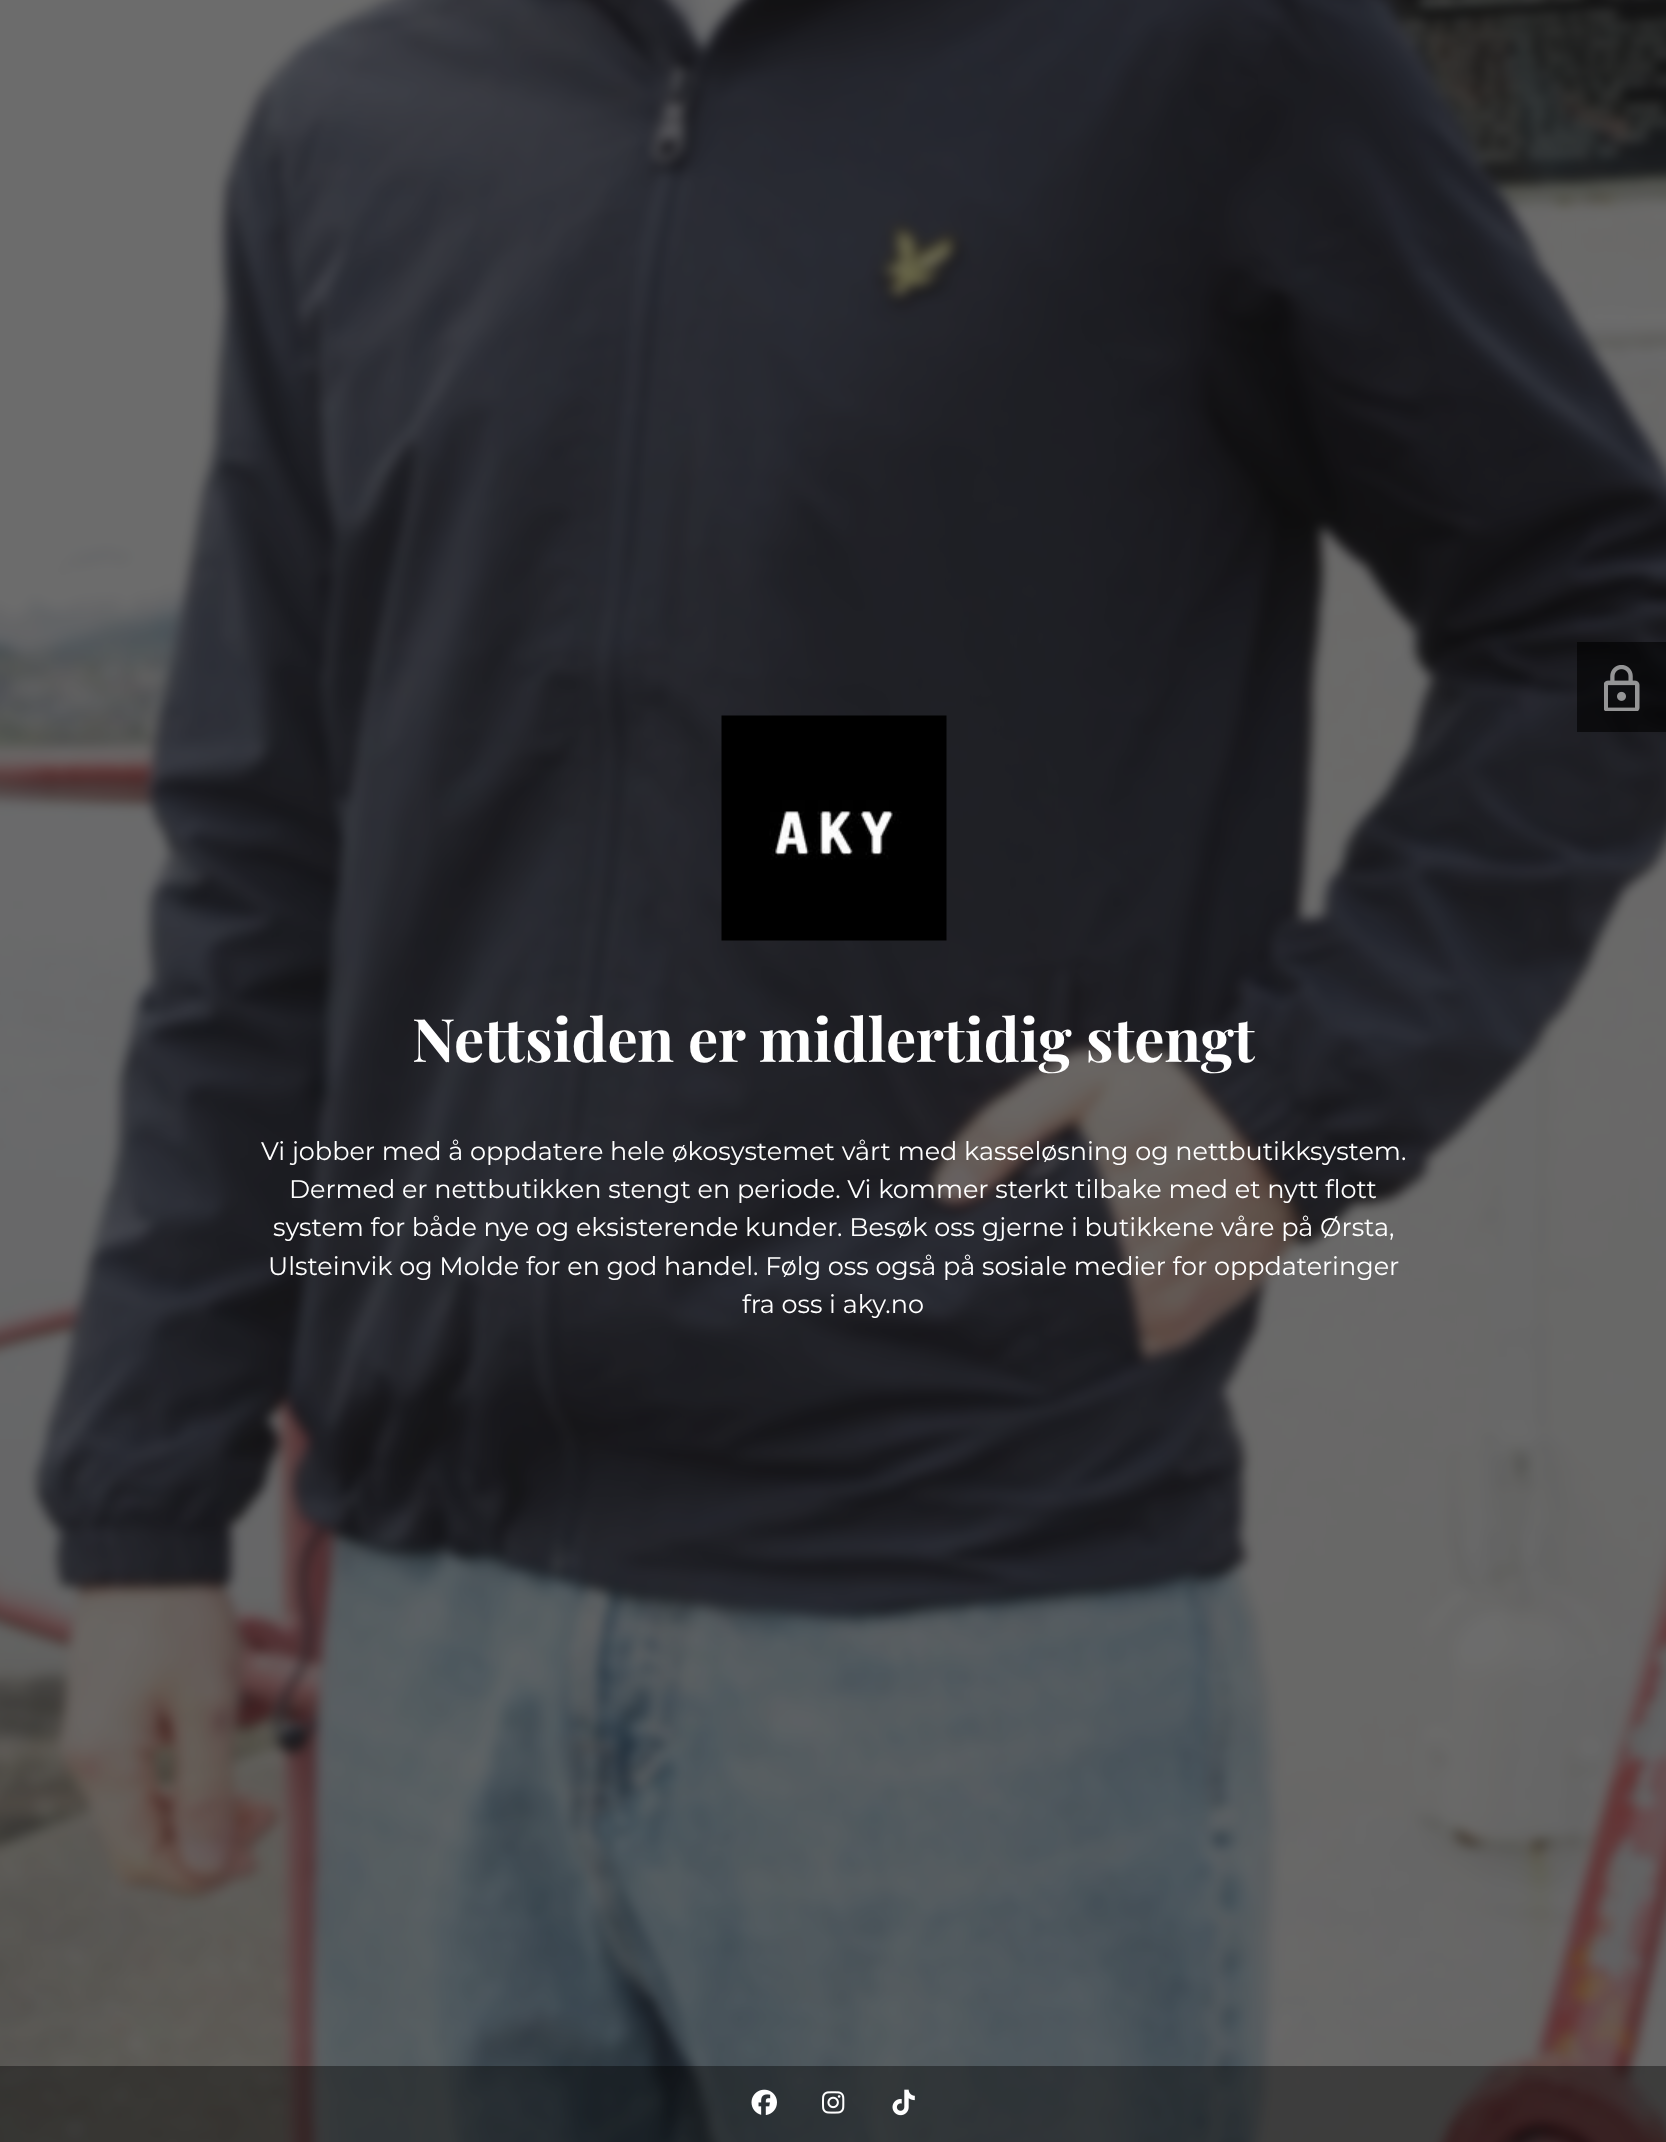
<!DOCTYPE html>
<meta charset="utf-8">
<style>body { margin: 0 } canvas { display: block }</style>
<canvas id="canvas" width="1666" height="2142"></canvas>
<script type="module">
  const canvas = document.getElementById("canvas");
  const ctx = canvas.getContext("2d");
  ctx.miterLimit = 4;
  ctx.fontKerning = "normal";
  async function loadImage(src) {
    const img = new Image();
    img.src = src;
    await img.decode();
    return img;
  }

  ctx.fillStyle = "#ffffff";
  ctx.fillRect(0, 0, 1666, 2142);
  ctx.drawImage(await loadImage("img1.png"), 0, 0, 1666, 2142);
  ctx.fillStyle = "rgba(0, 0, 0, 0.6)";
  ctx.fillRect(1577, 642, 89, 90);
  ctx.drawImage(await loadImage("img2.png"), 1604, 665, 36, 46);
  ctx.drawImage(await loadImage("img3.png"), 721, 715, 226, 226);
  ctx.font = "bold 60px Playfair Display";
  ctx.fillStyle = "#ffffff";
  ctx.fillText("Nettsiden er midlertidig stengt", 412, 1062);
  ctx.font = "25.5px Montserrat";
  ctx.fillText("Vi jobber med å oppdatere hele økosystemet vårt med kasseløsning og nettbutikksystem.", 261, 1160);
  ctx.fillText("Dermed er nettbutikken stengt en periode. Vi kommer sterkt tilbake med et nytt flott", 289, 1198);
  ctx.fillText("system for både nye og eksisterende kunder. Besøk oss gjerne i butikkene våre på Ørsta,", 273, 1236);
  ctx.fillText("Ulsteinvik og Molde for en god handel. Følg oss også på sosiale medier for oppdateringer", 268, 1275);
  ctx.fillText("fra oss i aky.no", 742, 1313);
  ctx.fillStyle = "rgba(0, 0, 0, 0.4)";
  ctx.fillRect(0, 2066, 1666, 76);
  ctx.drawImage(await loadImage("img4.png"), 751, 2089, 26, 26);
  ctx.drawImage(await loadImage("img5.png"), 822, 2091, 23, 23);
  ctx.drawImage(await loadImage("img6.png"), 892, 2089, 23, 27);
</script>
